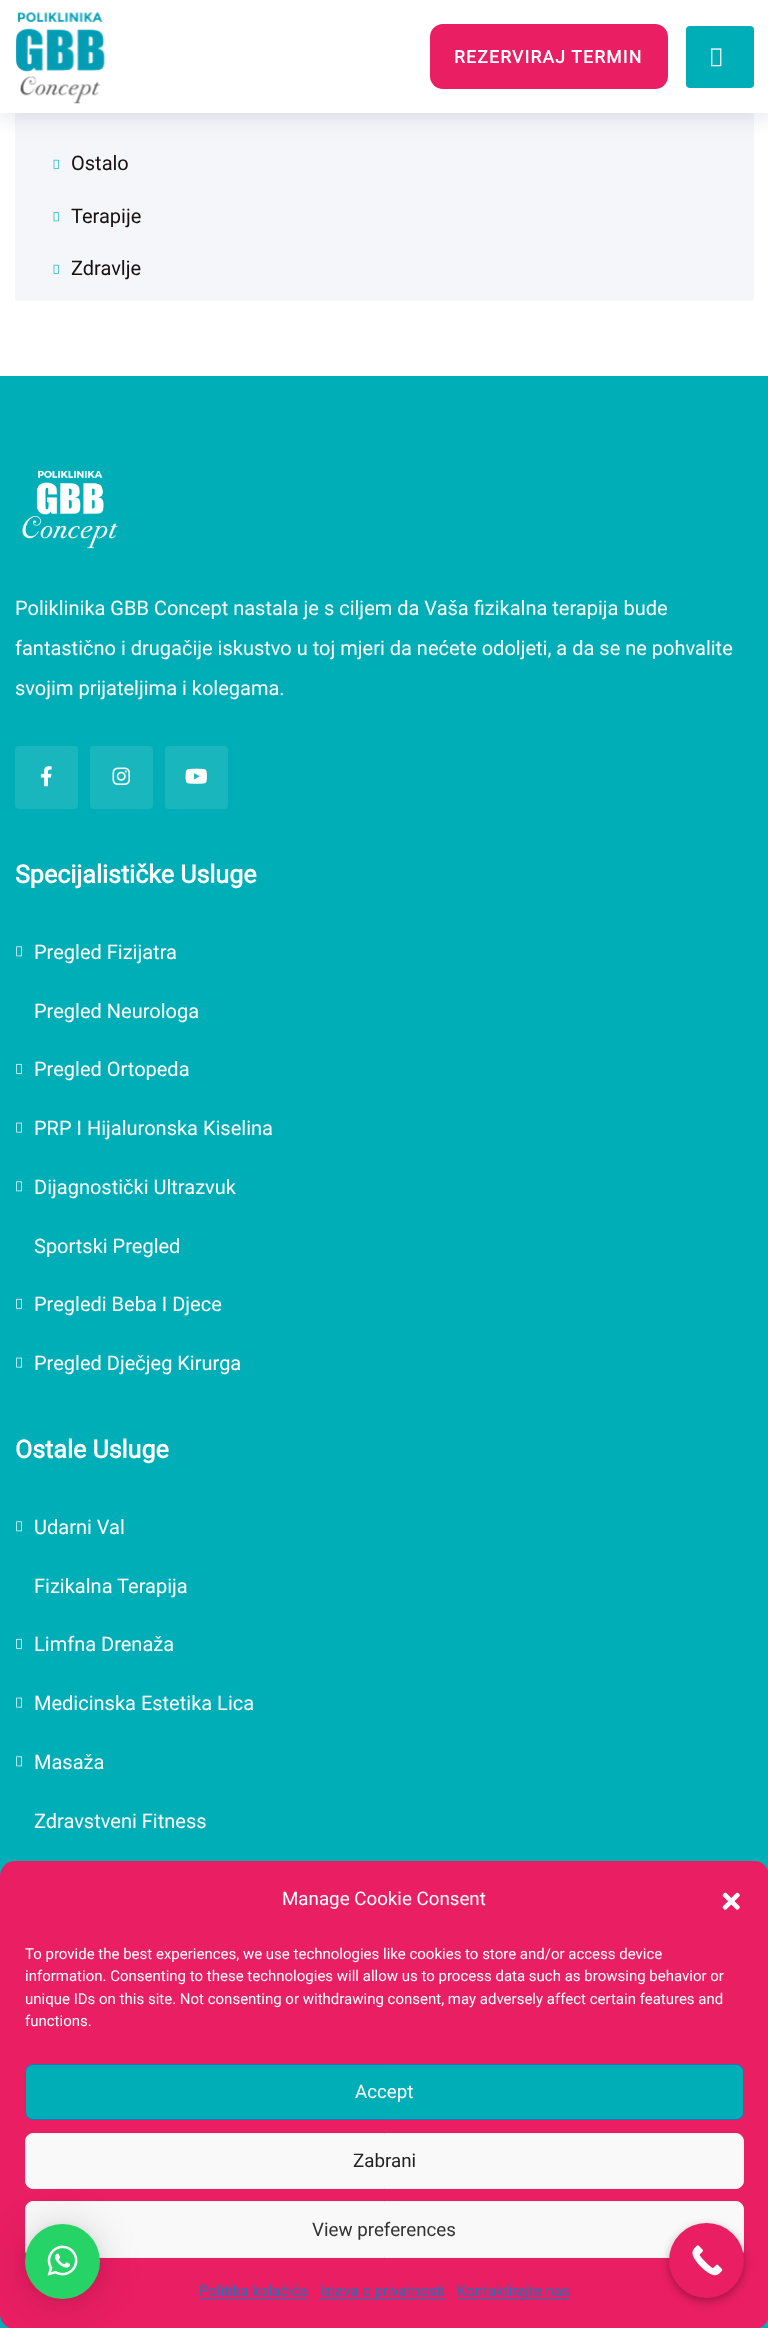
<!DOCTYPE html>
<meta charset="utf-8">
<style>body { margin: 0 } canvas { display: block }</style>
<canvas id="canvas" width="768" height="2328"></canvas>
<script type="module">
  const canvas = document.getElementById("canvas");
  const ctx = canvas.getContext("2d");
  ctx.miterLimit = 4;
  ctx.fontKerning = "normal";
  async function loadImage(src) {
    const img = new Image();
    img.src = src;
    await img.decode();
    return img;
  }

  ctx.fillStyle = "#ffffff";
  ctx.fillRect(0, 0, 768, 2328);
  ctx.fillStyle = "#f4f6f9";
  ctx.beginPath();
  ctx.roundRect(15, 48, 739, 253, 4);
  ctx.fill();
  ctx.fillStyle = "rgba(0, 33, 85, 0.1)";
  ctx.filter = "blur(9.5px)";
  ctx.beginPath();
  ctx.rect(0, 6, 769, 113);
  ctx.fill();
  ctx.filter = "none";
  ctx.fillStyle = "#ffffff";
  ctx.fillRect(0, 0, 768, 113);
  ctx.drawImage(await loadImage("img1.png"), 15, 12, 90, 92);
  ctx.fillStyle = "#e91e63";
  ctx.beginPath();
  ctx.roundRect(430, 24, 238, 65, 13);
  ctx.fill();
  ctx.letterSpacing = "1.25px";
  ctx.font = "bold 17.5px Roboto";
  ctx.fillStyle = "#ffffff";
  ctx.fillText("REZERVIRAJ TERMIN", 454, 63);
  ctx.fillStyle = "#00aeb7";
  ctx.beginPath();
  ctx.roundRect(686, 26, 68, 62, 4);
  ctx.fill();
  ctx.drawImage(await loadImage("img2.png"), 711, 48, 11, 19);
  ctx.drawImage(await loadImage("img3.png"), 53, 159, 6, 10);
  ctx.letterSpacing = "0px";
  ctx.font = "20px Roboto";
  ctx.fillStyle = "#18100f";
  ctx.fillText("Ostalo", 71, 170);
  ctx.drawImage(await loadImage("img4.png"), 53, 212, 6, 10);
  ctx.fillText("Terapije", 71, 223);
  ctx.drawImage(await loadImage("img3.png"), 53, 264, 6, 10);
  ctx.fillText("Zdravlje", 71, 275);
  ctx.fillStyle = "#00aeb7";
  ctx.fillRect(0, 376, 768, 1952);
  ctx.drawImage(await loadImage("img5.png"), 22, 470, 96, 79);
  ctx.fillStyle = "#ffffff";
  ctx.fillText("Poliklinika GBB Concept nastala je s ciljem da Vaša fizikalna terapija bude", 15, 615);
  ctx.fillText("fantastično i drugačije iskustvo u toj mjeri da nećete odoljeti, a da se ne pohvalite", 15, 655);
  ctx.fillText("svojim prijateljima i kolegama.", 15, 695);
  ctx.fillStyle = "#1ab6be";
  ctx.beginPath();
  ctx.roundRect(15, 746, 63, 63, 4);
  ctx.fill();
  ctx.drawImage(await loadImage("img6.png"), 40, 766, 12, 21);
  ctx.beginPath();
  ctx.roundRect(90, 746, 63, 63, 4);
  ctx.fill();
  ctx.drawImage(await loadImage("img7.png"), 112, 767, 18, 18);
  ctx.beginPath();
  ctx.roundRect(165, 746, 63, 63, 4);
  ctx.fill();
  ctx.drawImage(await loadImage("img8.png"), 185, 768, 22, 16);
  ctx.font = "bold 25px Roboto";
  ctx.fillStyle = "#ffffff";
  ctx.fillText("Specijalističke Usluge", 15, 883);
  ctx.drawImage(await loadImage("img9.png"), 16, 946, 6, 11);
  ctx.font = "20px Roboto";
  ctx.fillText("Pregled Fizijatra", 34, 959);
  ctx.fillText("Pregled Neurologa", 34, 1018);
  ctx.drawImage(await loadImage("img10.png"), 16, 1063, 6, 11);
  ctx.fillText("Pregled Ortopeda", 34, 1076);
  ctx.drawImage(await loadImage("img11.png"), 16, 1122, 6, 11);
  ctx.fillText("PRP I Hijaluronska Kiselina", 34, 1135);
  ctx.drawImage(await loadImage("img9.png"), 16, 1181, 6, 11);
  ctx.fillText("Dijagnostički Ultrazvuk", 34, 1194);
  ctx.fillText("Sportski Pregled", 34, 1253);
  ctx.drawImage(await loadImage("img10.png"), 16, 1298, 6, 11);
  ctx.fillText("Pregledi Beba I Djece", 34, 1311);
  ctx.drawImage(await loadImage("img11.png"), 16, 1357, 6, 11);
  ctx.fillText("Pregled Dječjeg Kirurga", 34, 1370);
  ctx.font = "bold 25px Roboto";
  ctx.fillText("Ostale Usluge", 15, 1458);
  ctx.drawImage(await loadImage("img9.png"), 16, 1521, 6, 11);
  ctx.font = "20px Roboto";
  ctx.fillText("Udarni Val", 34, 1534);
  ctx.fillText("Fizikalna Terapija", 34, 1593);
  ctx.drawImage(await loadImage("img10.png"), 16, 1638, 6, 11);
  ctx.fillText("Limfna Drenaža", 34, 1651);
  ctx.drawImage(await loadImage("img11.png"), 16, 1697, 6, 11);
  ctx.fillText("Medicinska Estetika Lica", 34, 1710);
  ctx.drawImage(await loadImage("img9.png"), 16, 1756, 6, 11);
  ctx.fillText("Masaža", 34, 1769);
  ctx.fillText("Zdravstveni Fitness", 34, 1828);
  ctx.fillStyle = "#e91e63";
  ctx.beginPath();
  ctx.roundRect(0, 1861, 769, 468, 15);
  ctx.fill();
  ctx.font = "18.75px Roboto";
  ctx.fillStyle = "#ffffff";
  ctx.fillText("Manage Cookie Consent", 282, 1905);
  ctx.drawImage(await loadImage("img12.png"), 722, 1892, 18, 18);
  ctx.font = "15px Roboto";
  ctx.fillText("To provide the best experiences, we use technologies like cookies to store and/or access device", 25, 1959);
  ctx.fillText("information. Consenting to these technologies will allow us to process data such as browsing behavior or", 25, 1981);
  ctx.fillText("unique IDs on this site. Not consenting or withdrawing consent, may adversely affect certain features and", 25, 2004);
  ctx.fillText("functions.", 25, 2026);
  ctx.fillStyle = "#00aeb7";
  ctx.beginPath();
  ctx.roundRect(25.5, 2064.5, 718, 55, 7.5);
  ctx.fill();
  ctx.strokeStyle = "#1e73be";
  ctx.stroke();
  ctx.font = "18.75px Roboto";
  ctx.fillStyle = "#ffffff";
  ctx.fillText("Accept", 355, 2098);
  ctx.fillStyle = "#f9f9f9";
  ctx.beginPath();
  ctx.roundRect(25.5, 2133.5, 718, 55, 7.5);
  ctx.fill();
  ctx.strokeStyle = "#f2f2f2";
  ctx.stroke();
  ctx.fillStyle = "#222222";
  ctx.fillText("Zabrani", 353, 2167);
  ctx.fillStyle = "#f9f9f9";
  ctx.beginPath();
  ctx.roundRect(25.5, 2201.5, 718, 56, 7.5);
  ctx.fill();
  ctx.stroke();
  ctx.fillStyle = "#333333";
  ctx.fillText("View preferences", 312, 2236);
  ctx.font = "15px Roboto";
  ctx.fillStyle = "#1e73be";
  ctx.fillText("Politika kolačića", 199, 2296);
  ctx.fillRect(199, 2298, 109, 1);
  ctx.fillRect(320, 2298, 125, 1);
  ctx.fillText("Izjava o privatnosti", 320, 2296);
  ctx.fillRect(458, 2298, 112, 1);
  ctx.fillText("Kontaktirajte nas", 457, 2296);
  ctx.fillStyle = "rgba(0, 0, 0, 0.16)";
  ctx.filter = "blur(20px)";
  ctx.beginPath();
  ctx.roundRect(25, 2226, 75, 75, 37.5);
  ctx.fill();
  ctx.filter = "none";
  ctx.fillStyle = "rgba(0, 0, 0, 0.06)";
  ctx.filter = "blur(4px)";
  ctx.beginPath();
  ctx.roundRect(25, 2225, 75, 75, 37.5);
  ctx.fill();
  ctx.filter = "none";
  ctx.fillStyle = "#25d366";
  ctx.beginPath();
  ctx.arc(62.5, 2261.5, 37.5, 0, Math.PI * 2);
  ctx.fill();
  ctx.drawImage(await loadImage("img13.png"), 47, 2245, 31, 31);
  ctx.fillStyle = "rgba(0, 0, 0, 0.3)";
  ctx.filter = "blur(4px)";
  ctx.beginPath();
  ctx.roundRect(669, 2226, 75, 75, 37.5);
  ctx.fill();
  ctx.filter = "none";
  ctx.fillStyle = "#e91e63";
  ctx.beginPath();
  ctx.arc(706.5, 2260.5, 37.5, 0, Math.PI * 2);
  ctx.fill();
  ctx.drawImage(await loadImage("img14.png"), 692, 2245, 31, 31);
</script>
